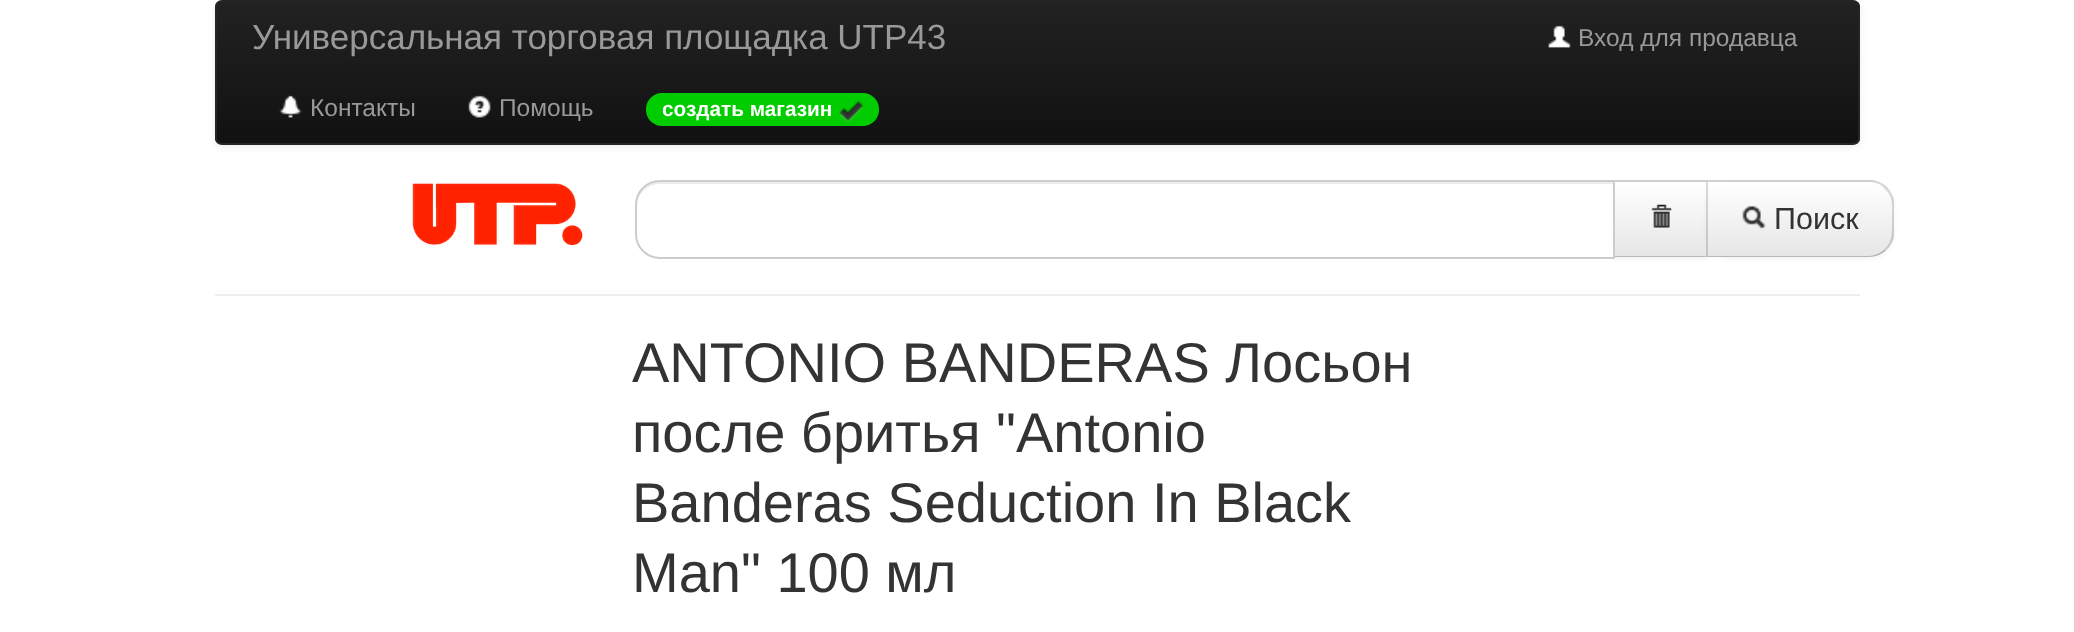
<!DOCTYPE html>
<meta charset="utf-8">
<style>body { margin: 0 } canvas { display: block }</style>
<canvas id="canvas" width="2074" height="632"></canvas>
<script type="module">
  const canvas = document.getElementById("canvas");
  const ctx = canvas.getContext("2d");
  ctx.miterLimit = 4;
  ctx.fontKerning = "normal";
  async function loadImage(src) {
    const img = new Image();
    img.src = src;
    await img.decode();
    return img;
  }
  let gradient;

  ctx.fillStyle = "#ffffff";
  ctx.fillRect(0, 0, 2074, 632);
  ctx.fillStyle = "rgba(0, 0, 0, 0.07)";
  ctx.filter = "blur(3.5px)";
  ctx.beginPath();
  ctx.roundRect(215, 2, 1645, 145, 7);
  ctx.fill();
  ctx.filter = "none";
  ctx.save();
  ctx.beginPath();
  ctx.roundRect(215, 0, 1645, 145, 7);
  ctx.clip();
  gradient = ctx.createLinearGradient(1038, 1.7, 1038, 144);
  gradient.addColorStop(0, "#222222");
  gradient.addColorStop(1, "#111111");
  ctx.fillStyle = gradient;
  ctx.fillRect(215, 2, 1645, 142);
  ctx.restore();
  ctx.beginPath();
  ctx.roundRect(216, 1, 1643, 143, 6);
  ctx.strokeStyle = "#252525";
  ctx.lineWidth = 2;
  ctx.stroke();
  ctx.font = "35px Liberation Sans";
  ctx.fillStyle = "#999999";
  ctx.fillText("Универсальная торговая площадка UTP43", 252, 49);
  ctx.drawImage(await loadImage("img1.png"), 1548, 25, 23, 23);
  ctx.font = "24.5px Liberation Sans";
  ctx.fillText("Вход для продавца", 1578, 46);
  ctx.drawImage(await loadImage("img2.png"), 279, 95, 23, 23);
  ctx.fillText("Контакты", 310, 116);
  ctx.drawImage(await loadImage("img3.png"), 468, 95, 23, 23);
  ctx.fillText("Помощь", 499, 116);
  ctx.fillStyle = "#00cc00";
  ctx.beginPath();
  ctx.roundRect(646, 93, 233, 33, 16);
  ctx.fill();
  ctx.font = "bold 20.75px Liberation Sans";
  ctx.fillStyle = "#ffffff";
  ctx.fillText("создать магазин", 662, 116);
  ctx.drawImage(await loadImage("img4.png"), 839, 101, 24, 22);
  ctx.drawImage(await loadImage("img5.png"), 412, 183, 171, 63);
  ctx.fillStyle = "rgba(0, 0, 0, 0.05)";
  ctx.filter = "blur(2px)";
  ctx.beginPath();
  ctx.rect(1614, 182, 94, 77);
  ctx.fill();
  ctx.filter = "none";
  ctx.fillStyle = "#d0d0d0";
  ctx.beginPath();
  ctx.moveTo(1614, 180);
  ctx.lineTo(1708, 180);
  ctx.lineTo(1706, 182);
  ctx.lineTo(1615, 182);
  ctx.closePath();
  ctx.fill();
  ctx.fillStyle = "rgba(0, 0, 0, 0.25)";
  ctx.beginPath();
  ctx.moveTo(1708, 257);
  ctx.lineTo(1614, 257);
  ctx.lineTo(1615, 256);
  ctx.lineTo(1706, 256);
  ctx.closePath();
  ctx.fill();
  ctx.fillStyle = "#ffffff";
  ctx.beginPath();
  ctx.roundRect(635, 180, 980, 79, [25, 0, 0, 25]);
  ctx.fill();
  ctx.fillStyle = "#ececec";
  ctx.beginPath();
  ctx.moveTo(660, 184);
  ctx.lineTo(1614, 184);
  ctx.lineTo(1614, 182);
  ctx.lineTo(660, 182);
  ctx.bezierCurveTo(647, 182, 637, 192, 637, 205);
  ctx.lineTo(637, 206);
  ctx.bezierCurveTo(637, 194, 647, 184, 660, 184);
  ctx.closePath();
  ctx.fill();
  ctx.beginPath();
  ctx.roundRect(636, 181, 978, 77, [24, 0, 0, 24]);
  ctx.strokeStyle = "#cccccc";
  ctx.stroke();
  gradient = ctx.createLinearGradient(1661, 182, 1661, 256);
  gradient.addColorStop(0, "#ffffff");
  gradient.addColorStop(1, "#e6e6e6");
  ctx.fillStyle = gradient;
  ctx.fillRect(1615, 182, 91, 74);
  ctx.drawImage(await loadImage("img6.png"), 1651, 204, 21, 25);
  ctx.fillStyle = "rgba(0, 0, 0, 0.05)";
  ctx.filter = "blur(2px)";
  ctx.beginPath();
  ctx.roundRect(1706, 182, 188, 77, 25);
  ctx.fill();
  ctx.filter = "none";
  ctx.fillStyle = "#f5f5f5";
  ctx.beginPath();
  ctx.roundRect(1706, 180, 188, 77, [0, 25, 25, 0]);
  ctx.fill();
  ctx.save();
  ctx.beginPath();
  ctx.roundRect(1706, 180, 188, 77, [0, 25, 25, 0]);
  ctx.clip();
  gradient = ctx.createLinearGradient(1800, 182, 1800, 256);
  gradient.addColorStop(0, "#ffffff");
  gradient.addColorStop(1, "#e6e6e6");
  ctx.fillStyle = gradient;
  ctx.fillRect(1706, 182, 188, 74);
  ctx.restore();
  ctx.fillStyle = "rgba(0, 0, 0, 0.15)";
  ctx.beginPath();
  ctx.moveTo(1708, 182);
  ctx.lineTo(1706, 180);
  ctx.lineTo(1873, 180);
  ctx.bezierCurveTo(1878, 181, 1883, 183, 1887, 187);
  ctx.lineTo(1885, 189);
  ctx.bezierCurveTo(1881, 184, 1875, 182, 1869, 182);
  ctx.closePath();
  ctx.fill();
  ctx.beginPath();
  ctx.moveTo(1894, 238);
  ctx.bezierCurveTo(1892, 243, 1890, 247, 1886, 250);
  ctx.lineTo(1885, 249);
  ctx.bezierCurveTo(1893, 241, 1892, 230, 1892, 219);
  ctx.bezierCurveTo(1892, 208, 1894, 197, 1885, 189);
  ctx.lineTo(1887, 187);
  ctx.bezierCurveTo(1890, 191, 1893, 195, 1894, 200);
  ctx.closePath();
  ctx.fill();
  ctx.fillStyle = "rgba(0, 0, 0, 0.25)";
  ctx.beginPath();
  ctx.moveTo(1886, 250);
  ctx.bezierCurveTo(1882, 254, 1876, 257, 1869, 257);
  ctx.lineTo(1706, 257);
  ctx.lineTo(1708, 256);
  ctx.lineTo(1869, 256);
  ctx.bezierCurveTo(1875, 256, 1881, 253, 1885, 249);
  ctx.closePath();
  ctx.fill();
  ctx.fillStyle = "rgba(0, 0, 0, 0.15)";
  ctx.beginPath();
  ctx.moveTo(1708, 182);
  ctx.lineTo(1708, 256);
  ctx.lineTo(1706, 257);
  ctx.lineTo(1706, 180);
  ctx.closePath();
  ctx.fill();
  ctx.drawImage(await loadImage("img7.png"), 1742, 206, 24, 24);
  ctx.font = "30.5px Liberation Sans";
  ctx.fillStyle = "#333333";
  ctx.fillText("Поиск", 1774, 229);
  ctx.fillStyle = "#eeeeee";
  ctx.fillRect(215, 294, 1645, 2);
  ctx.font = "56px Liberation Sans";
  ctx.fillStyle = "#333333";
  ctx.fillText("ANTONIO BANDERAS Лосьон", 632, 382);
  ctx.fillText("после бритья \"Antonio", 632, 452);
  ctx.fillText("Banderas Seduction In Black", 632, 522);
  ctx.fillText("Man\" 100 мл", 632, 592);
</script>
